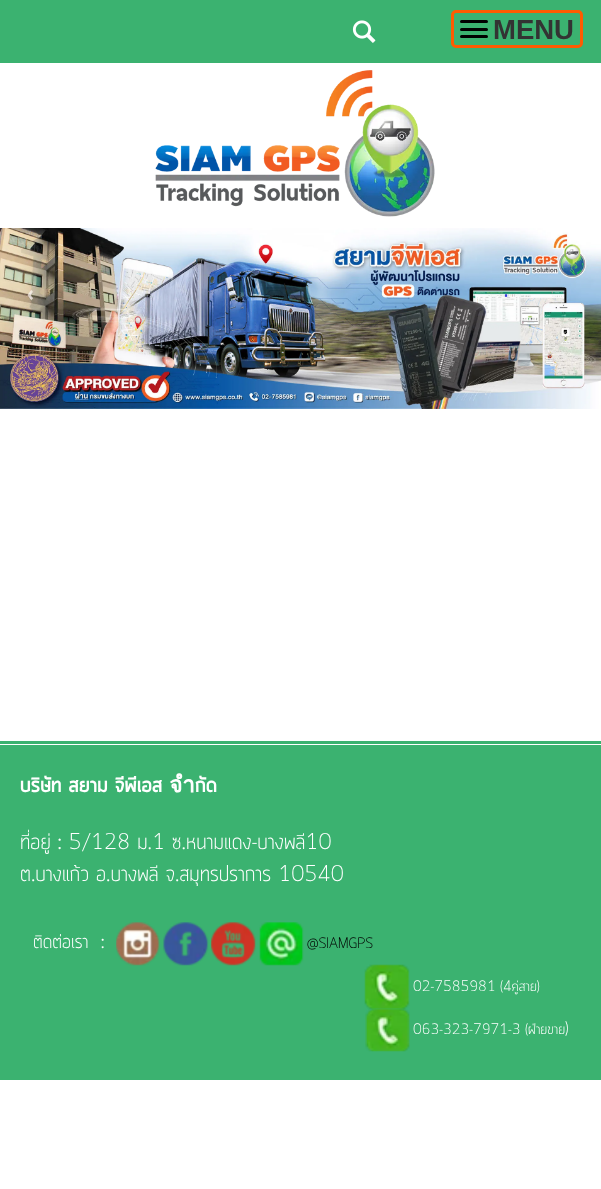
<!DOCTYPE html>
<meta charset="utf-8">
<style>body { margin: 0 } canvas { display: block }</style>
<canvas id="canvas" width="601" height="1189"></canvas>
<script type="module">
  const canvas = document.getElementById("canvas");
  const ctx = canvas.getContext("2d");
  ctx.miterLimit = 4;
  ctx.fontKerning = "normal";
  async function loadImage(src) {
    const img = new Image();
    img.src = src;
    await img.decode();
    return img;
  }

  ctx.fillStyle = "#ffffff";
  ctx.fillRect(0, 0, 601, 1189);
  ctx.fillStyle = "#3bb270";
  ctx.fillRect(0, 0, 601, 63);
  ctx.drawImage(await loadImage("img1.png"), 352, 20, 24, 23);
  ctx.beginPath();
  ctx.roundRect(452.5, 11.5, 129, 35, 3.5);
  ctx.strokeStyle = "#ff5b00";
  ctx.lineWidth = 3;
  ctx.stroke();
  ctx.fillStyle = "#000000";
  ctx.beginPath();
  ctx.roundRect(460, 20, 28, 3, 1.5);
  ctx.fill();
  ctx.beginPath();
  ctx.roundRect(460, 28, 28, 3, 1.5);
  ctx.fill();
  ctx.beginPath();
  ctx.roundRect(460, 35, 28, 3, 1.5);
  ctx.fill();
  ctx.font = "bold 27.5px Liberation Sans";
  ctx.fillStyle = "#333333";
  ctx.fillText("MENU", 493, 39);
  ctx.drawImage(await loadImage("img2.png"), 155, 70, 280, 147);
  ctx.drawImage(await loadImage("img3.png"), 0, 228, 601, 181);
  ctx.fillStyle = "#3bb270";
  ctx.fillRect(0, 741, 601, 3);
  ctx.fillRect(0, 745, 601, 335);
  ctx.font = "bold 22.5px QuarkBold";
  ctx.fillStyle = "#ffffff";
  ctx.fillText("บริษัท สยาม จีพีเอส จำกัด", 20, 792);
  ctx.font = "300 22.5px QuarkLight";
  ctx.fillText("ที่อยู่ : 5/128 ม.1 ซ.หนามแดง-บางพลี10", 20, 849);
  ctx.fillText("ต.บางแก้ว อ.บางพลี จ.สมุทรปราการ 10540", 20, 881);
  ctx.font = "300 20px QuarkLight";
  ctx.fillText("ติดต่อเรา  :", 33, 948);
  ctx.drawImage(await loadImage("img4.png"), 116, 922, 44, 44);
  ctx.drawImage(await loadImage("img5.png"), 163, 922, 46, 44);
  ctx.drawImage(await loadImage("img6.png"), 211, 922, 45, 44);
  ctx.drawImage(await loadImage("img7.png"), 259, 922, 45, 44);
  ctx.font = "300 15px QuarkLight";
  ctx.fillStyle = "#000000";
  ctx.fillText("@SIAMGPS", 307, 948);
  ctx.drawImage(await loadImage("img8.png"), 364, 964, 46, 46);
  ctx.fillStyle = "#ffffff";
  ctx.fillText("02-7585981 (4คู่สาย)", 413, 991);
  ctx.drawImage(await loadImage("img9.png"), 365, 1008, 45, 44);
  ctx.fillText("063-323-7971-3 (ฝ่ายขาย", 413, 1034);
  ctx.font = "300 18px QuarkLight";
  ctx.fillText(")", 565, 1034);
</script>
